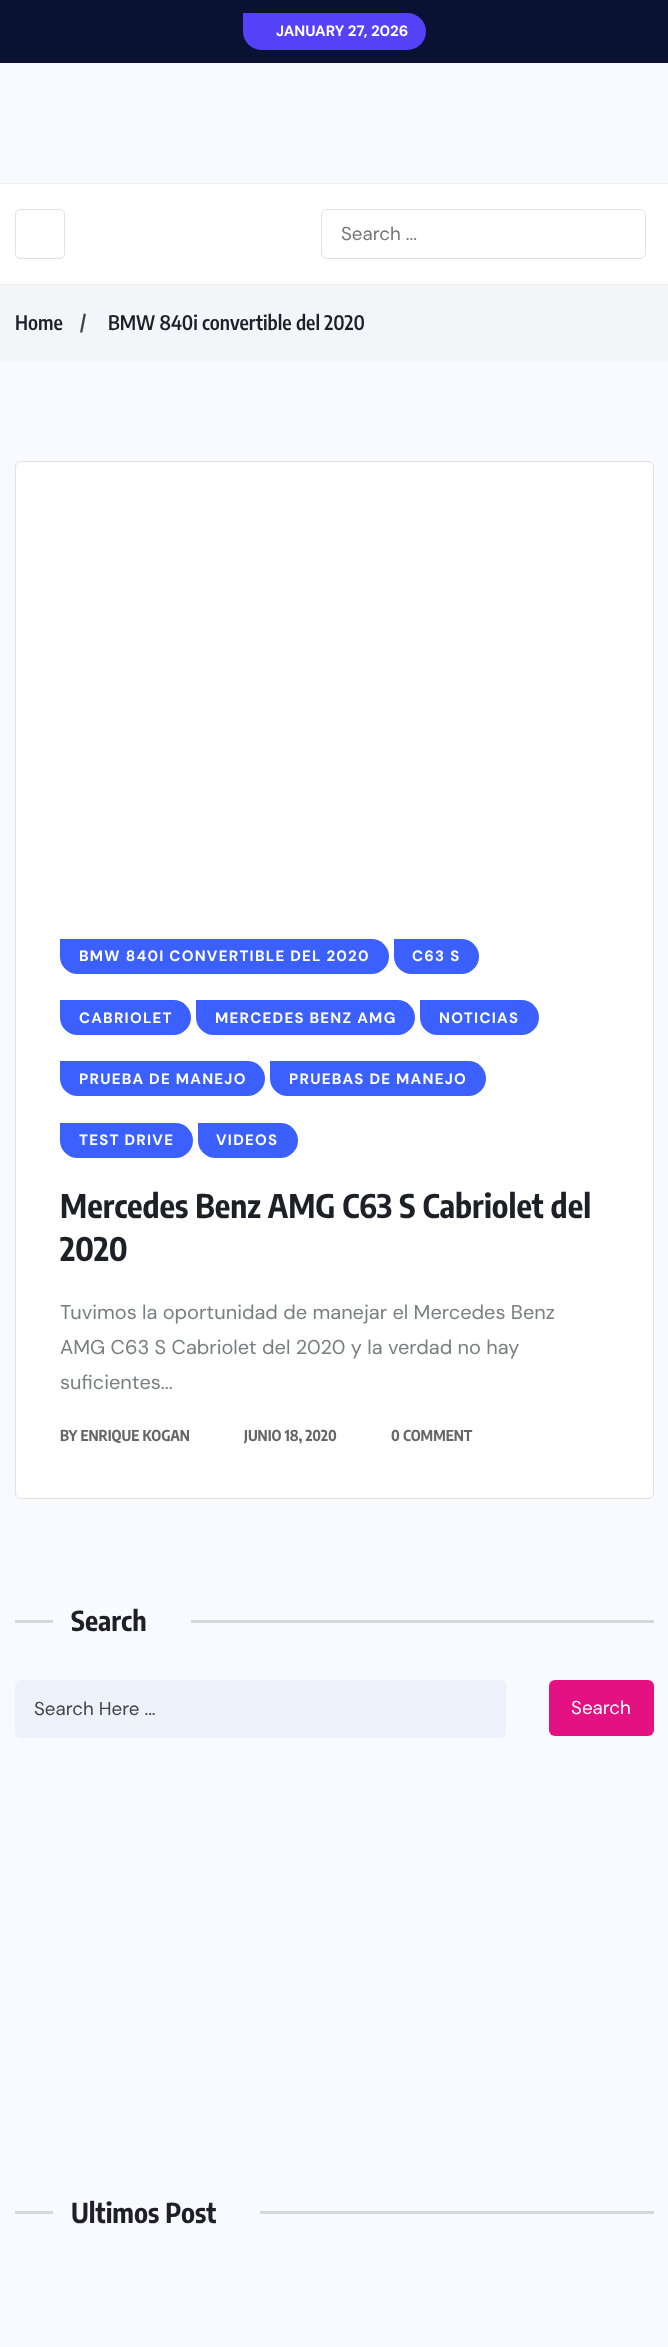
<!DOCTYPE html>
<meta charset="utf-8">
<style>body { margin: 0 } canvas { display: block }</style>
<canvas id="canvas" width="668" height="2347"></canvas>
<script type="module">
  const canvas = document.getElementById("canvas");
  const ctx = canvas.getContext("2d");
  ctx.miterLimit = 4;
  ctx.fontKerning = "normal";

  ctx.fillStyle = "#f9faff";
  ctx.fillRect(0, 0, 668, 2347);
  ctx.fillStyle = "#0a1233";
  ctx.fillRect(0, 0, 668, 63);
  ctx.fillStyle = "#5541f8";
  ctx.beginPath();
  ctx.roundRect(243, 13, 183, 37, [0, 18.5, 18.5, 18.5]);
  ctx.fill();
  ctx.font = "bold 15px DM Sans";
  ctx.fillStyle = "#ffffff";
  ctx.fillText("JANUARY 27, 2026", 276, 36);
  ctx.fillRect(0, 184, 668, 100);
  ctx.fillStyle = "#f0f0f0";
  ctx.fillRect(0, 183, 668, 1);
  ctx.fillRect(0, 284, 668, 1);
  ctx.beginPath();
  ctx.roundRect(15.5, 209.5, 49, 49, 4.5);
  ctx.strokeStyle = "#e2e2e2";
  ctx.stroke();
  ctx.beginPath();
  ctx.roundRect(321.5, 209.5, 324, 49, 5.5);
  ctx.stroke();
  ctx.fillStyle = "#ffffff";
  ctx.beginPath();
  ctx.roundRect(323, 210, 322, 48, 5);
  ctx.fill();
  ctx.font = "18.75px DM Sans";
  ctx.fillStyle = "#757575";
  ctx.fillText("Search ...", 341, 240);
  ctx.fillStyle = "#f2f6f9";
  ctx.fillRect(0, 285, 668, 76);
  ctx.font = "600 20px Encode Sans Condensed";
  ctx.fillStyle = "#1d2027";
  ctx.fillText("Home", 15, 330);
  ctx.fillStyle = "#434343";
  ctx.fillText("/", 80, 330);
  ctx.fillStyle = "#1d2027";
  ctx.fillText("BMW 840i convertible del 2020", 108, 330);
  ctx.fillStyle = "#ffffff";
  ctx.beginPath();
  ctx.roundRect(15.5, 461.5, 638, 1037, 5.5);
  ctx.fill();
  ctx.strokeStyle = "#e1e1e1";
  ctx.stroke();
  ctx.fillStyle = "#3b60fe";
  ctx.beginPath();
  ctx.roundRect(60, 939, 329, 35, [0, 17.5, 17.5, 17.5]);
  ctx.fill();
  ctx.letterSpacing = "1.25px";
  ctx.font = "bold 15px DM Sans";
  ctx.fillStyle = "#ffffff";
  ctx.fillText("BMW 840I CONVERTIBLE DEL 2020", 79, 961);
  ctx.fillStyle = "#3b60fe";
  ctx.beginPath();
  ctx.roundRect(394, 939, 85, 35, [0, 17.5, 17.5, 17.5]);
  ctx.fill();
  ctx.fillStyle = "#ffffff";
  ctx.fillText("C63 S", 412, 961);
  ctx.fillStyle = "#3b60fe";
  ctx.beginPath();
  ctx.roundRect(60, 1000, 131, 35, [0, 17.5, 17.5, 17.5]);
  ctx.fill();
  ctx.fillStyle = "#ffffff";
  ctx.fillText("CABRIOLET", 79, 1023);
  ctx.fillStyle = "#3b60fe";
  ctx.beginPath();
  ctx.roundRect(196, 1000, 219, 35, [0, 17.5, 17.5, 17.5]);
  ctx.fill();
  ctx.fillStyle = "#ffffff";
  ctx.fillText("MERCEDES BENZ AMG", 215, 1023);
  ctx.fillStyle = "#3b60fe";
  ctx.beginPath();
  ctx.roundRect(420, 1000, 119, 35, [0, 17.5, 17.5, 17.5]);
  ctx.fill();
  ctx.fillStyle = "#ffffff";
  ctx.fillText("NOTICIAS", 439, 1023);
  ctx.fillStyle = "#3b60fe";
  ctx.beginPath();
  ctx.roundRect(60, 1061, 205, 35, [0, 17.5, 17.5, 17.5]);
  ctx.fill();
  ctx.fillStyle = "#ffffff";
  ctx.fillText("PRUEBA DE MANEJO", 79, 1084);
  ctx.fillStyle = "#3b60fe";
  ctx.beginPath();
  ctx.roundRect(270, 1061, 216, 35, [0, 17.5, 17.5, 17.5]);
  ctx.fill();
  ctx.fillStyle = "#ffffff";
  ctx.fillText("PRUEBAS DE MANEJO", 289, 1084);
  ctx.fillStyle = "#3b60fe";
  ctx.beginPath();
  ctx.roundRect(60, 1123, 133, 35, [0, 17.5, 17.5, 17.5]);
  ctx.fill();
  ctx.fillStyle = "#ffffff";
  ctx.fillText("TEST DRIVE", 79, 1145);
  ctx.fillStyle = "#3b60fe";
  ctx.beginPath();
  ctx.roundRect(198, 1123, 100, 35, [0, 17.5, 17.5, 17.5]);
  ctx.fill();
  ctx.fillStyle = "#ffffff";
  ctx.fillText("VIDEOS", 216, 1145);
  ctx.letterSpacing = "0px";
  ctx.font = "bold 32.5px Encode Sans Condensed";
  ctx.fillStyle = "#1d2027";
  ctx.fillText("Mercedes Benz AMG C63 S Cabriolet del", 60, 1218);
  ctx.fillText("2020", 60, 1261);
  ctx.font = "20px DM Sans";
  ctx.fillStyle = "#7a7e83";
  ctx.fillText("Tuvimos la oportunidad de manejar el Mercedes Benz", 60, 1319);
  ctx.fillText("AMG C63 S Cabriolet del 2020 y la verdad no hay", 60, 1354);
  ctx.fillText("suficientes...", 60, 1389);
  ctx.font = "bold 15px Encode Sans Condensed";
  ctx.fillStyle = "#666666";
  ctx.fillText("BY ENRIQUE KOGAN", 60, 1441);
  ctx.fillText("JUNIO 18, 2020", 244, 1441);
  ctx.fillText("0 COMMENT", 391, 1441);
  ctx.fillStyle = "#d7d7d7";
  ctx.fillRect(15, 1620, 38, 3);
  ctx.font = "bold 27.5px Encode Sans Condensed";
  ctx.fillStyle = "#1d2027";
  ctx.fillText("Search", 71, 1631);
  ctx.fillStyle = "#d7d7d7";
  ctx.fillRect(191, 1620, 463, 3);
  ctx.fillStyle = "#ecf1fc";
  ctx.beginPath();
  ctx.roundRect(15, 1680, 491, 58, 6);
  ctx.fill();
  ctx.font = "18.75px DM Sans";
  ctx.fillStyle = "#434343";
  ctx.fillText("Search Here ...", 34, 1715);
  ctx.fillStyle = "#e41183";
  ctx.beginPath();
  ctx.roundRect(549, 1680, 105, 56, 6);
  ctx.fill();
  ctx.fillStyle = "#ffffff";
  ctx.fillText("Search", 571, 1714);
  ctx.fillStyle = "#d7d7d7";
  ctx.fillRect(15, 2211, 38, 3);
  ctx.font = "bold 27.5px Encode Sans Condensed";
  ctx.fillStyle = "#1d2027";
  ctx.fillText("Ultimos Post", 71, 2223);
  ctx.fillStyle = "#d7d7d7";
  ctx.fillRect(260, 2211, 394, 3);
</script>
